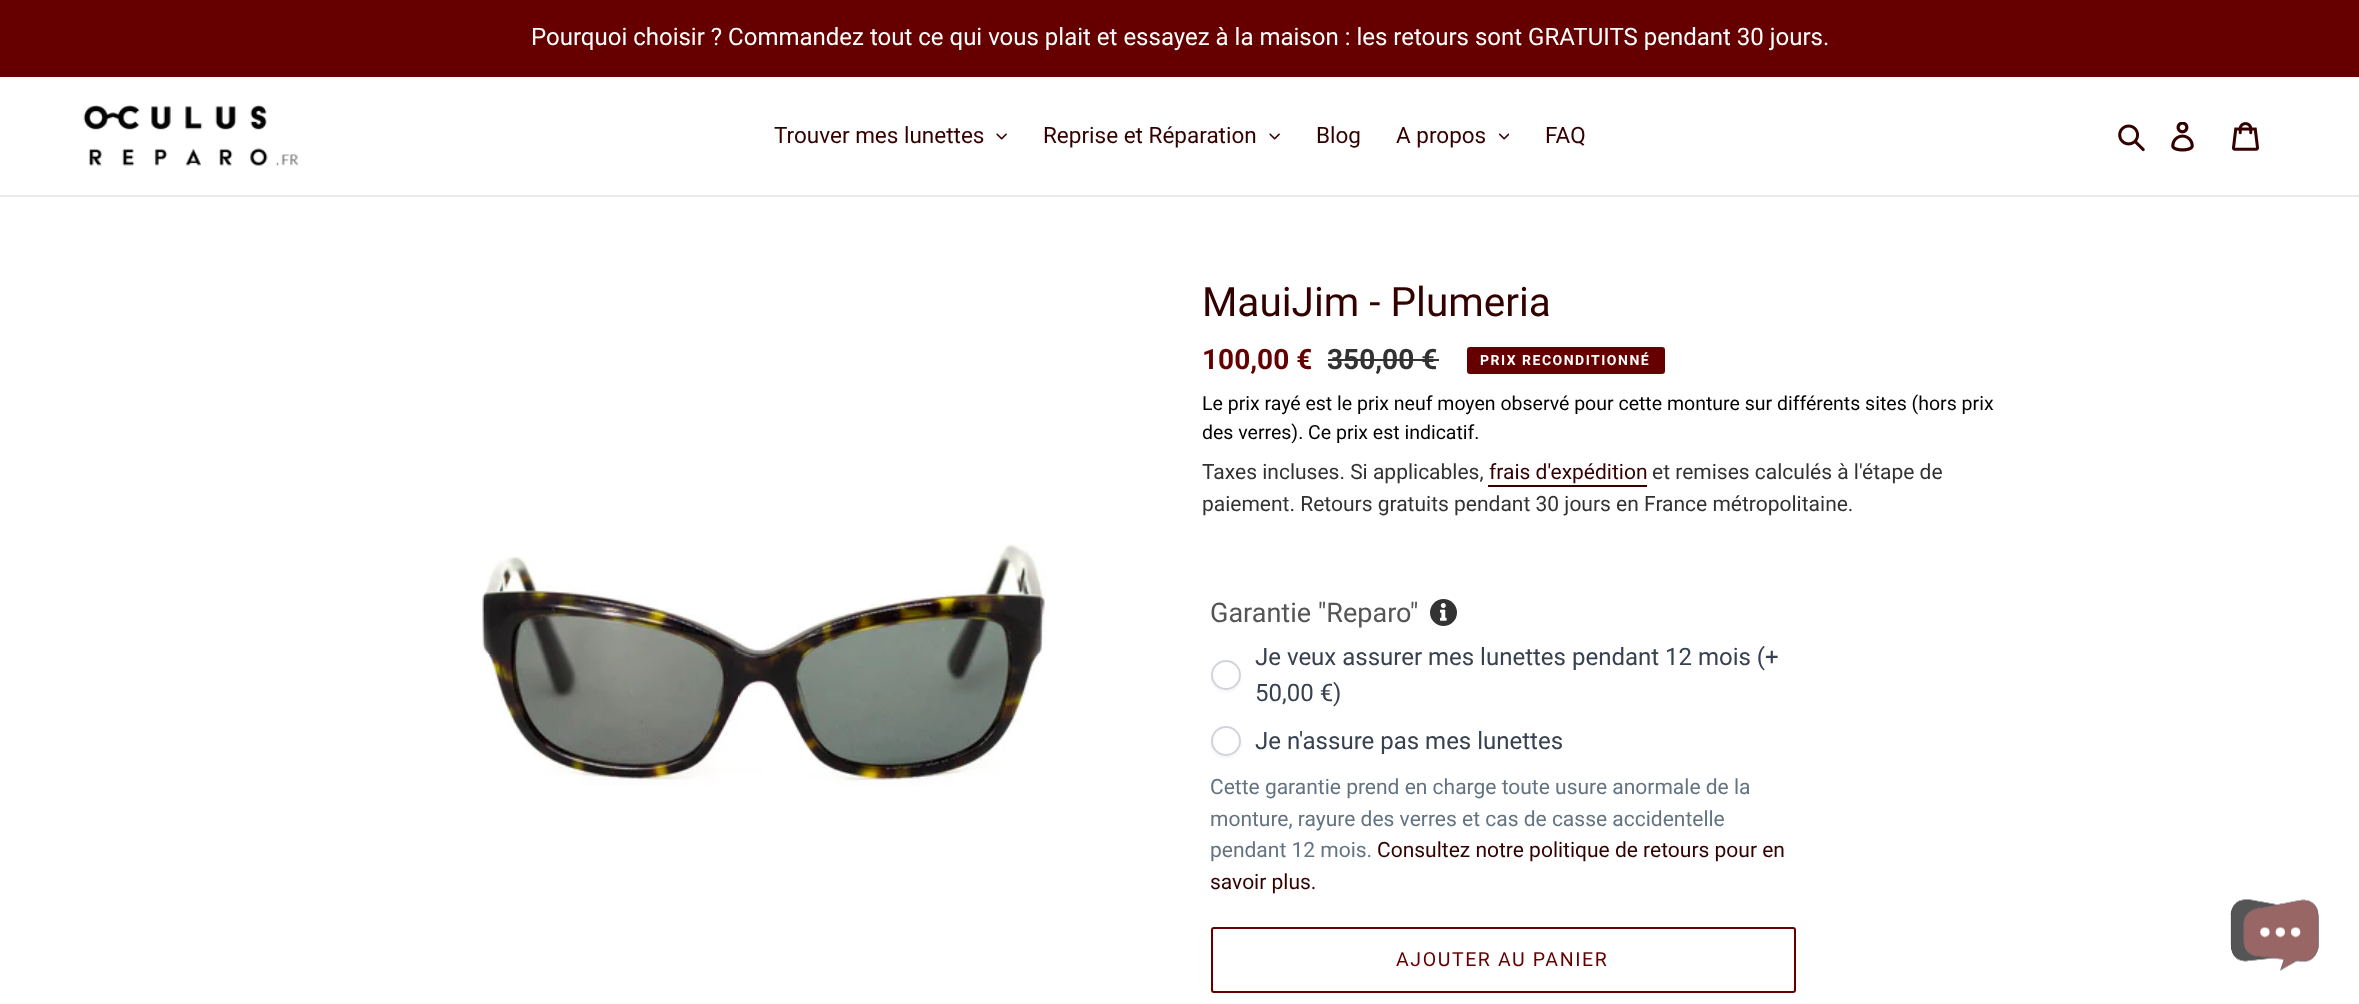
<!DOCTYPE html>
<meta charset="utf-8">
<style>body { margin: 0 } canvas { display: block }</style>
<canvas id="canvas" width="2359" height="1004"></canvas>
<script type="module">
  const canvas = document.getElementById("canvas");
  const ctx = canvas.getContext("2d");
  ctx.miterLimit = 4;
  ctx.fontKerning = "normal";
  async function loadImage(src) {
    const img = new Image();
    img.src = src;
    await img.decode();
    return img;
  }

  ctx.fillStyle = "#ffffff";
  ctx.fillRect(0, 0, 2359, 1004);
  ctx.fillStyle = "#660000";
  ctx.fillRect(0, 0, 2359, 77);
  ctx.font = "24px Roboto";
  ctx.fillStyle = "#ffffff";
  ctx.fillText("Pourquoi choisir ? Commandez tout ce qui vous plait et essayez à la maison : les retours sont GRATUITS pendant 30 jours.", 531, 45);
  ctx.fillStyle = "#ebebeb";
  ctx.fillRect(0, 195, 2359, 2);
  ctx.drawImage(await loadImage("img1.png"), 83, 105, 215, 61);
  ctx.font = "22.5px Roboto";
  ctx.fillStyle = "#330000";
  ctx.fillText("Trouver mes lunettes", 774, 143);
  ctx.drawImage(await loadImage("img2.png"), 996, 133, 11, 7);
  ctx.fillText("Reprise et Réparation", 1043, 143);
  ctx.drawImage(await loadImage("img2.png"), 1269, 133, 11, 7);
  ctx.fillText("Blog", 1316, 143);
  ctx.fillText("A propos", 1396, 143);
  ctx.drawImage(await loadImage("img3.png"), 1499, 133, 10, 7);
  ctx.fillText("FAQ", 1545, 143);
  ctx.drawImage(await loadImage("img4.png"), 2118, 124, 27, 28);
  ctx.drawImage(await loadImage("img5.png"), 2171, 122, 23, 30);
  ctx.drawImage(await loadImage("img6.png"), 2232, 122, 27, 29);
  ctx.drawImage(await loadImage("img7.png"), 481, 544, 565, 242);
  ctx.font = "40.5px Roboto";
  ctx.fillText("MauiJim - Plumeria", 1202, 316);
  ctx.font = "bold 28px Roboto";
  ctx.fillStyle = "#660000";
  ctx.fillText("100,00 €", 1202, 369);
  ctx.fillStyle = "#333232";
  ctx.fillText("350,00 €", 1327, 369);
  ctx.fillRect(1328, 359, 111, 2);
  ctx.fillStyle = "#660000";
  ctx.beginPath();
  ctx.roundRect(1468, 348, 196, 25, 2);
  ctx.fill();
  ctx.strokeStyle = "#660000";
  ctx.lineWidth = 2;
  ctx.stroke();
  ctx.letterSpacing = "1.5px";
  ctx.font = "bold 14px Roboto";
  ctx.fillStyle = "#ffffff";
  ctx.fillText("PRIX RECONDITIONNÉ", 1480, 365);
  ctx.letterSpacing = "0px";
  ctx.font = "19.5px Roboto";
  ctx.fillStyle = "#000000";
  ctx.fillText("Le prix rayé est le prix neuf moyen observé pour cette monture sur différents sites (hors prix", 1202, 410);
  ctx.fillText("des verres). Ce prix est indicatif.", 1202, 439);
  ctx.font = "21px Roboto";
  ctx.fillStyle = "#333232";
  ctx.fillText("Taxes incluses. Si applicables,", 1202, 479);
  ctx.fillStyle = "#330000";
  ctx.fillText("frais d'expédition", 1489, 479);
  ctx.fillRect(1488, 485, 159, 2);
  ctx.fillStyle = "#333232";
  ctx.fillText("et remises calculés à l'étape de", 1652, 479);
  ctx.fillText("paiement. Retours gratuits pendant 30 jours en France métropolitaine.", 1202, 511);
  ctx.font = "27px Roboto";
  ctx.fillStyle = "#555555";
  ctx.fillText("Garantie \"Reparo\"", 1210, 622);
  ctx.fillStyle = "#333333";
  ctx.beginPath();
  ctx.arc(1443.5, 612.5, 13.5, 0, Math.PI * 2);
  ctx.fill();
  ctx.drawImage(await loadImage("img8.png"), 1440, 603, 7, 18);
  ctx.fillStyle = "rgba(0, 0, 0, 0.05)";
  ctx.filter = "blur(1.5px)";
  ctx.beginPath();
  ctx.roundRect(1211, 662, 30, 30, 15);
  ctx.fill();
  ctx.filter = "none";
  ctx.fillStyle = "#ffffff";
  ctx.beginPath();
  ctx.arc(1226, 675, 14, 0, Math.PI * 2);
  ctx.fill();
  ctx.strokeStyle = "#d1d5db";
  ctx.stroke();
  ctx.font = "24px Roboto";
  ctx.fillStyle = "#374151";
  ctx.fillText("Je veux assurer mes lunettes pendant 12 mois (+", 1255, 665);
  ctx.fillText("50,00 €)", 1255, 701);
  ctx.fillStyle = "rgba(0, 0, 0, 0.05)";
  ctx.filter = "blur(1.5px)";
  ctx.beginPath();
  ctx.roundRect(1211, 728, 30, 30, 15);
  ctx.fill();
  ctx.filter = "none";
  ctx.fillStyle = "#ffffff";
  ctx.beginPath();
  ctx.arc(1226, 741, 14, 0, Math.PI * 2);
  ctx.fill();
  ctx.stroke();
  ctx.fillStyle = "#374151";
  ctx.fillText("Je n'assure pas mes lunettes", 1255, 749);
  ctx.font = "21px Roboto";
  ctx.fillStyle = "#637381";
  ctx.fillText("Cette garantie prend en charge toute usure anormale de la", 1210, 794);
  ctx.fillText("monture, rayure des verres et cas de casse accidentelle", 1210, 826);
  ctx.fillText("pendant 12 mois.", 1210, 857);
  ctx.fillStyle = "#330000";
  ctx.fillText("Consultez notre politique de retours pour en", 1377, 857);
  ctx.fillText("savoir plus.", 1210, 889);
  ctx.beginPath();
  ctx.roundRect(1212, 928, 583, 64, 2);
  ctx.strokeStyle = "#660000";
  ctx.stroke();
  ctx.letterSpacing = "1.6px";
  ctx.font = "19.5px Roboto";
  ctx.fillStyle = "#660000";
  ctx.fillText("AJOUTER AU PANIER", 1396, 966);
  ctx.drawImage(await loadImage("img9.png"), 2230, 899, 89, 72);
</script>
